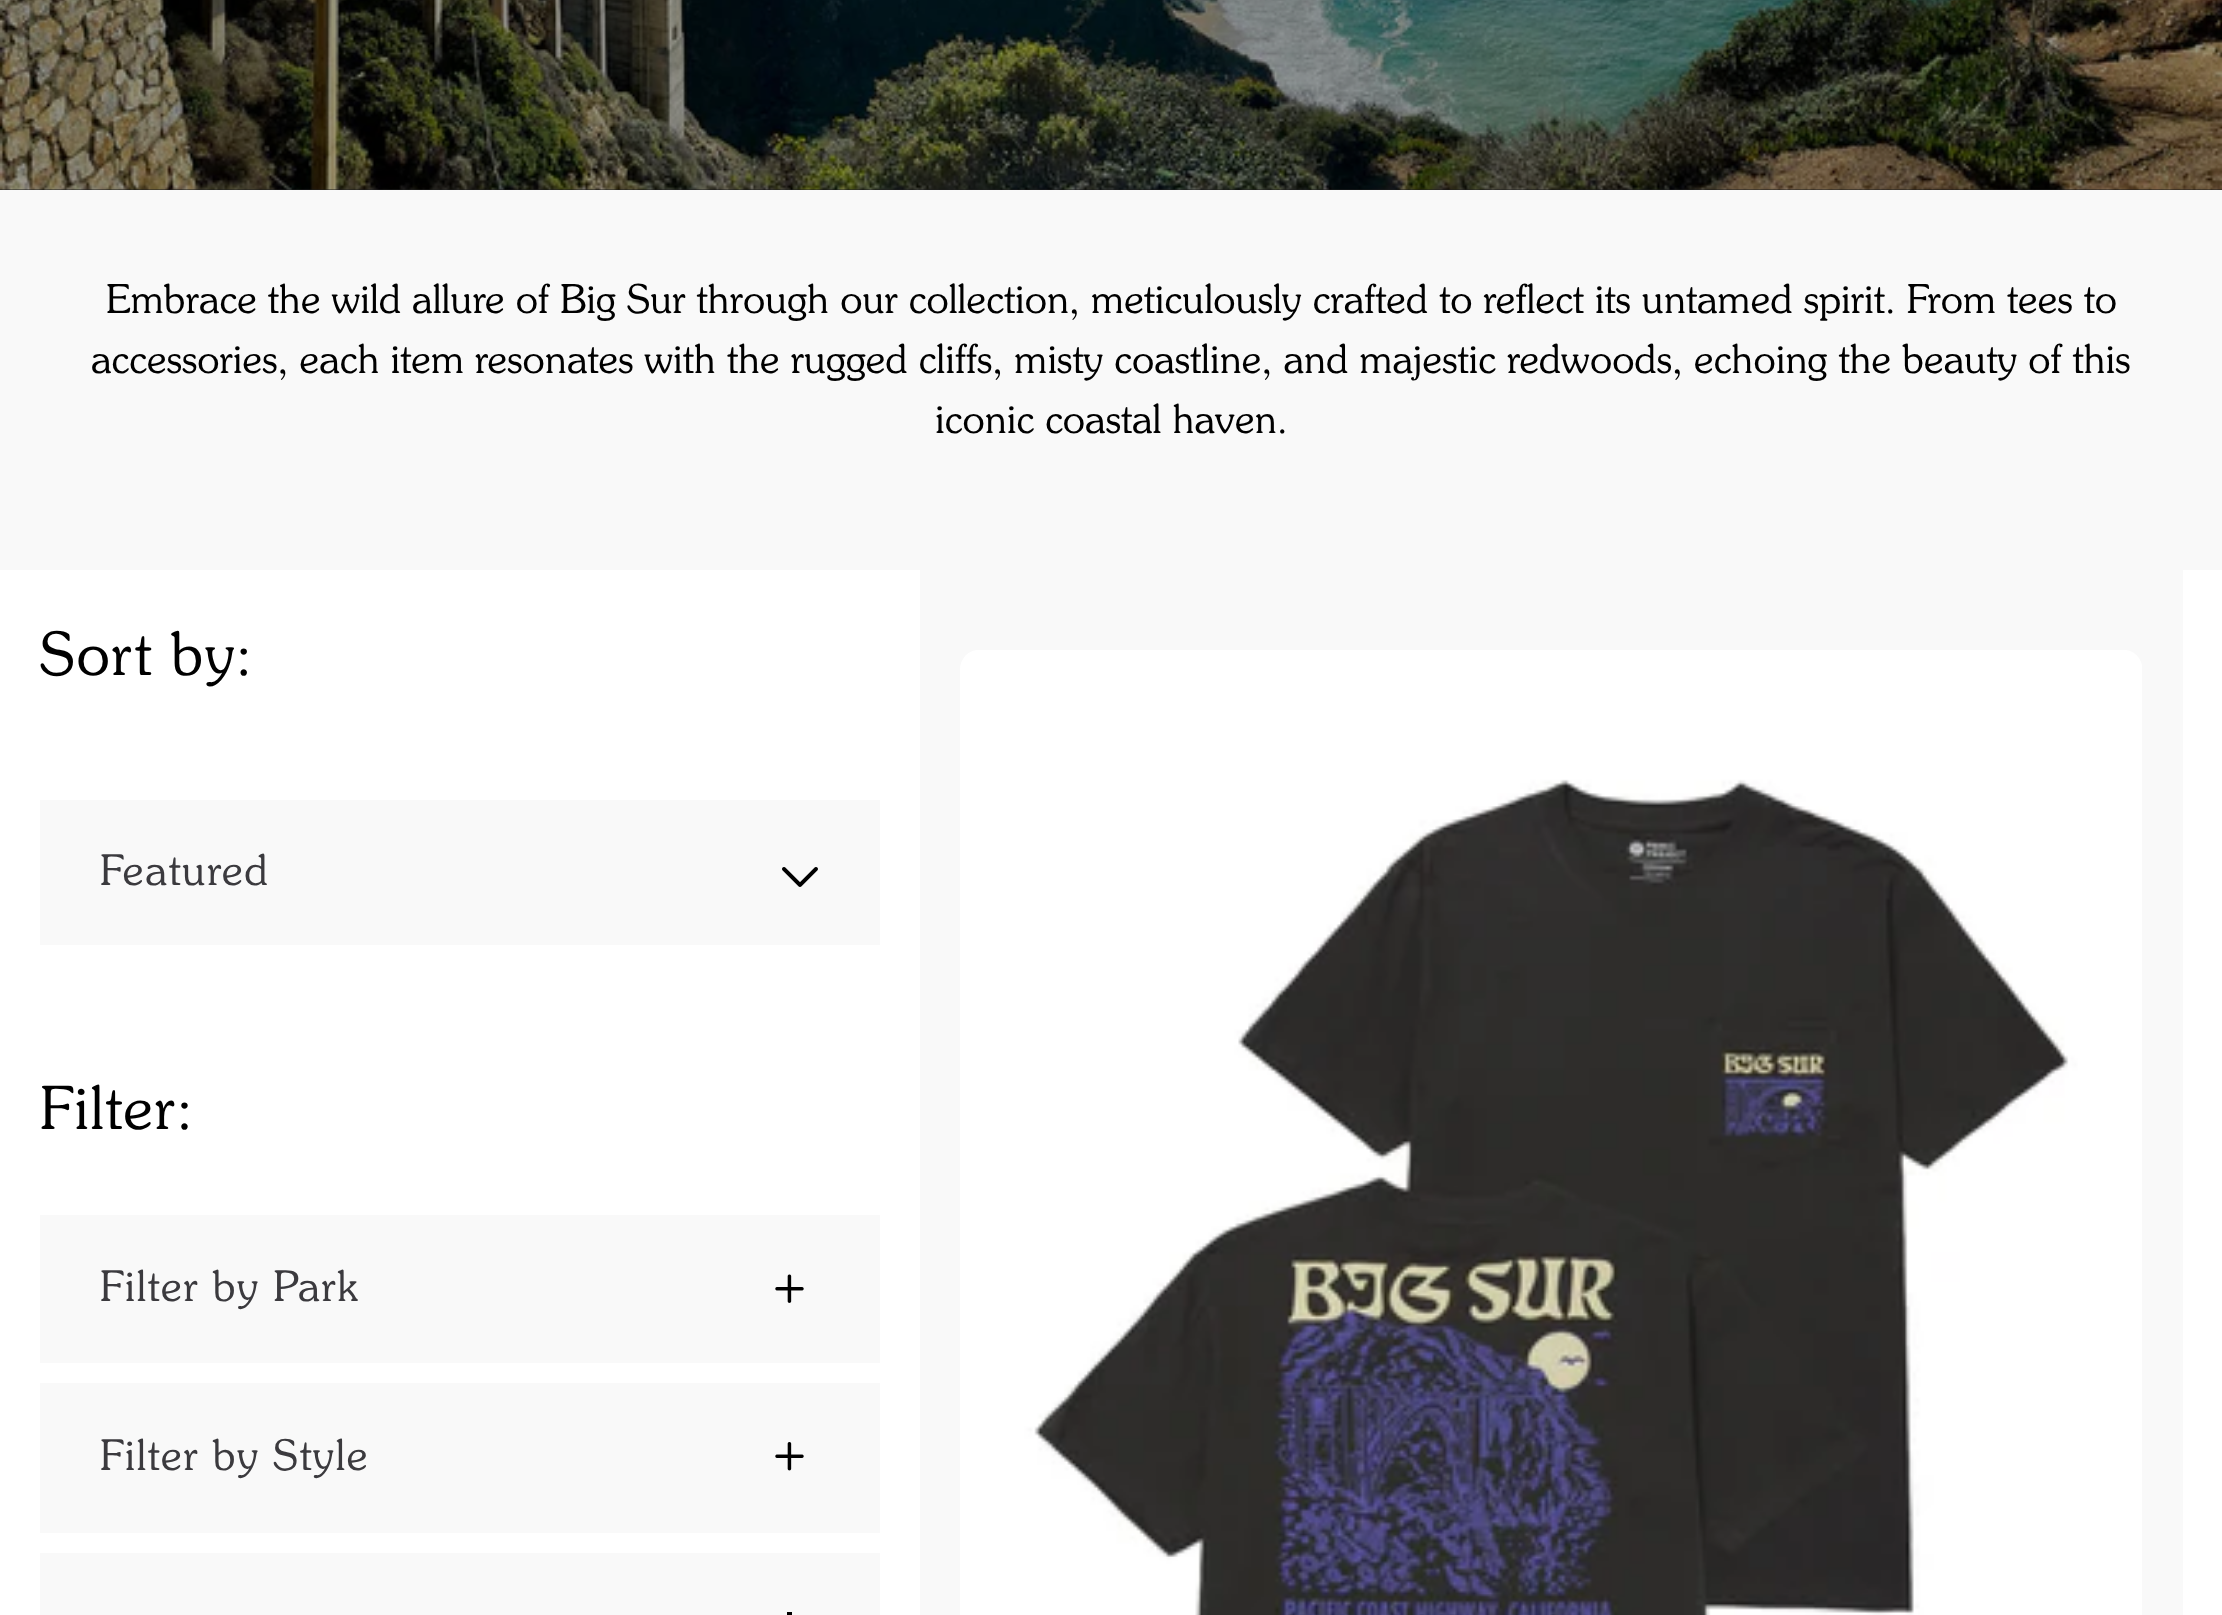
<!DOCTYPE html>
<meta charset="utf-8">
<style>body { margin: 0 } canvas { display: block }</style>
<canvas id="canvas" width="2222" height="1615"></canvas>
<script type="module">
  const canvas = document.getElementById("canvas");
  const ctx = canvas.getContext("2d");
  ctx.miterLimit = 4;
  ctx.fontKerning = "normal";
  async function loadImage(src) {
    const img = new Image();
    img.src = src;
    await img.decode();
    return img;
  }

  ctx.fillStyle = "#f9f9f9";
  ctx.fillRect(0, 0, 2222, 1615);
  ctx.fillStyle = "#1f1f1f";
  ctx.fillRect(0, 189, 2222, 1);
  ctx.drawImage(await loadImage("img1.png"), 0, 0, 2222, 190);
  ctx.font = "300 40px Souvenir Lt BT";
  ctx.fillStyle = "#000000";
  ctx.fillText("Embrace the wild allure of Big Sur through our collection, meticulously crafted to reflect its untamed spirit. From tees to", 106, 313);
  ctx.fillText("accessories, each item resonates with the rugged cliffs, misty coastline, and majestic redwoods, echoing the beauty of this", 91, 373);
  ctx.fillText("iconic coastal haven.", 935, 433);
  ctx.fillStyle = "#ffffff";
  ctx.fillRect(0, 570, 2222, 1045);
  ctx.letterSpacing = "1.6px";
  ctx.font = "300 60px Souvenir Lt BT";
  ctx.fillStyle = "#000000";
  ctx.fillText("Sort by:", 40, 675);
  ctx.fillStyle = "#f9f9f9";
  ctx.fillRect(40, 800, 840, 145);
  ctx.font = "300 42.5px Souvenir Lt BT";
  ctx.fillStyle = "#3b3a3e";
  ctx.fillText("Featured", 100, 885);
  ctx.drawImage(await loadImage("img2.png"), 782, 867, 36, 20);
  ctx.font = "300 60px Souvenir Lt BT";
  ctx.fillStyle = "#000000";
  ctx.fillText("Filter:", 40, 1129);
  ctx.fillStyle = "#f9f9f9";
  ctx.fillRect(40, 1215, 840, 148);
  ctx.font = "300 42.5px Souvenir Lt BT";
  ctx.fillStyle = "#3b3a3e";
  ctx.fillText("Filter by Park", 100, 1301);
  ctx.drawImage(await loadImage("img3.png"), 775, 1274, 29, 29);
  ctx.fillStyle = "#f9f9f9";
  ctx.fillRect(40, 1383, 840, 150);
  ctx.fillStyle = "#3b3a3e";
  ctx.fillText("Filter by Style", 100, 1470);
  ctx.drawImage(await loadImage("img4.png"), 775, 1442, 29, 29);
  ctx.fillStyle = "#f9f9f9";
  ctx.fillRect(40, 1553, 840, 62);
  ctx.fillStyle = "#000000";
  ctx.fillRect(787, 1612, 5, 3);
  ctx.fillStyle = "#f9f9f9";
  ctx.fillRect(920, 570, 1263, 1045);
  ctx.drawImage(await loadImage("img5.png"), 960, 650, 1182, 965);
</script>
